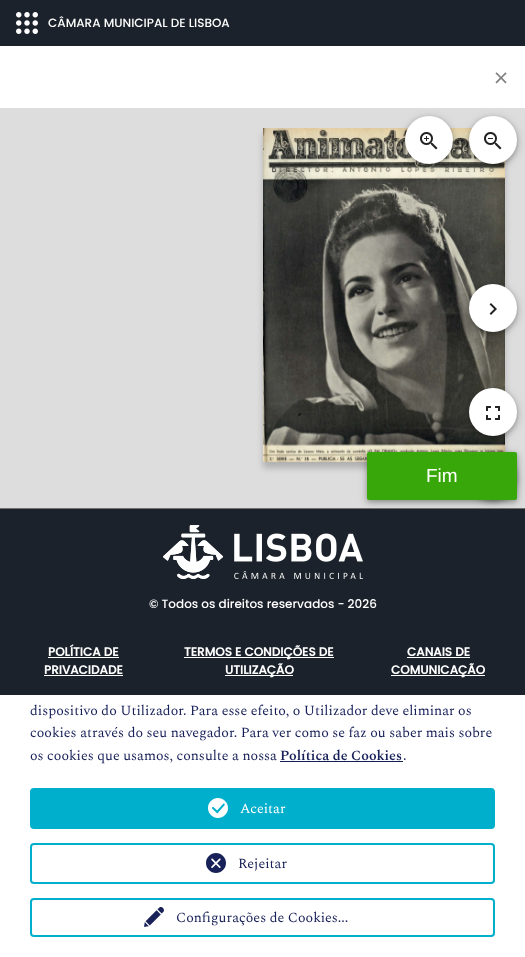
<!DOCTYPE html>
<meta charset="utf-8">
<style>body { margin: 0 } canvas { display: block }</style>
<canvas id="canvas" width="525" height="957"></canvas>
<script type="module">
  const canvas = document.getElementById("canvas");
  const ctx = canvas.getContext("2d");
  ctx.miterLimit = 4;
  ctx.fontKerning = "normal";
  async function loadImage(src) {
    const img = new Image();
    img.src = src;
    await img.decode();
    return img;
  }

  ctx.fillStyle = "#ffffff";
  ctx.fillRect(0, 0, 525, 957);
  ctx.fillStyle = "#1c222b";
  ctx.fillRect(0, 0, 525, 46);
  ctx.drawImage(await loadImage("img1.png"), 16, 12, 22, 22);
  ctx.font = "500 12px Poppins";
  ctx.fillStyle = "#ffffff";
  ctx.fillText("CÂMARA MUNICIPAL DE LISBOA", 48, 27);
  ctx.font = "600 30px Spectral";
  ctx.fillStyle = "#808080";
  ctx.fillText("×", 493, 86);
  ctx.fillStyle = "#dddddd";
  ctx.fillRect(0, 108, 525, 400);
  ctx.fillStyle = "rgba(0, 0, 0, 0.2)";
  ctx.filter = "blur(3px)";
  ctx.beginPath();
  ctx.rect(263, 134, 242, 334);
  ctx.fill();
  ctx.filter = "none";
  ctx.drawImage(await loadImage("img7.png"), 263, 461, 104, 1);
  ctx.drawImage(await loadImage("img6.png"), 263, 128, 242, 334);
  ctx.fillStyle = "rgba(0, 0, 0, 0.16)";
  ctx.filter = "blur(5px)";
  ctx.beginPath();
  ctx.roundRect(405, 118, 48, 48, 24);
  ctx.fill();
  ctx.filter = "none";
  ctx.fillStyle = "rgba(0, 0, 0, 0.26)";
  ctx.filter = "blur(2.5px)";
  ctx.beginPath();
  ctx.roundRect(405, 118, 48, 48, 24);
  ctx.fill();
  ctx.filter = "none";
  ctx.fillStyle = "#ffffff";
  ctx.beginPath();
  ctx.arc(429, 140, 24, 0, Math.PI * 2);
  ctx.fill();
  ctx.drawImage(await loadImage("img2.png"), 420, 132, 18, 18);
  ctx.fillStyle = "rgba(0, 0, 0, 0.16)";
  ctx.filter = "blur(5px)";
  ctx.beginPath();
  ctx.roundRect(469, 118, 48, 48, 24);
  ctx.fill();
  ctx.filter = "none";
  ctx.fillStyle = "rgba(0, 0, 0, 0.26)";
  ctx.filter = "blur(2.5px)";
  ctx.beginPath();
  ctx.roundRect(469, 118, 48, 48, 24);
  ctx.fill();
  ctx.filter = "none";
  ctx.fillStyle = "#ffffff";
  ctx.beginPath();
  ctx.arc(493, 140, 24, 0, Math.PI * 2);
  ctx.fill();
  ctx.drawImage(await loadImage("img3.png"), 484, 132, 18, 18);
  ctx.fillStyle = "rgba(0, 0, 0, 0.16)";
  ctx.filter = "blur(5px)";
  ctx.beginPath();
  ctx.roundRect(469, 286, 48, 48, 24);
  ctx.fill();
  ctx.filter = "none";
  ctx.fillStyle = "rgba(0, 0, 0, 0.26)";
  ctx.filter = "blur(2.5px)";
  ctx.beginPath();
  ctx.roundRect(469, 286, 48, 48, 24);
  ctx.fill();
  ctx.filter = "none";
  ctx.fillStyle = "#ffffff";
  ctx.beginPath();
  ctx.arc(493, 308, 24, 0, Math.PI * 2);
  ctx.fill();
  ctx.drawImage(await loadImage("img4.png"), 489, 303, 8, 12);
  ctx.fillStyle = "rgba(0, 0, 0, 0.16)";
  ctx.filter = "blur(5px)";
  ctx.beginPath();
  ctx.roundRect(469, 390, 48, 48, 24);
  ctx.fill();
  ctx.filter = "none";
  ctx.fillStyle = "rgba(0, 0, 0, 0.26)";
  ctx.filter = "blur(2.5px)";
  ctx.beginPath();
  ctx.roundRect(469, 390, 48, 48, 24);
  ctx.fill();
  ctx.filter = "none";
  ctx.fillStyle = "#ffffff";
  ctx.beginPath();
  ctx.arc(493, 412, 24, 0, Math.PI * 2);
  ctx.fill();
  ctx.drawImage(await loadImage("img5.png"), 486, 406, 14, 14);
  ctx.fillStyle = "rgba(0, 0, 0, 0.16)";
  ctx.filter = "blur(5px)";
  ctx.beginPath();
  ctx.roundRect(469, 454, 48, 48, 24);
  ctx.fill();
  ctx.filter = "none";
  ctx.fillStyle = "rgba(0, 0, 0, 0.26)";
  ctx.filter = "blur(2.5px)";
  ctx.beginPath();
  ctx.roundRect(469, 454, 48, 48, 24);
  ctx.fill();
  ctx.filter = "none";
  ctx.fillStyle = "rgba(0, 0, 0, 0.16)";
  ctx.filter = "blur(5px)";
  ctx.beginPath();
  ctx.roundRect(367, 454, 150, 48, 2);
  ctx.fill();
  ctx.filter = "none";
  ctx.fillStyle = "rgba(0, 0, 0, 0.26)";
  ctx.filter = "blur(2.5px)";
  ctx.beginPath();
  ctx.roundRect(367, 454, 150, 48, 2);
  ctx.fill();
  ctx.filter = "none";
  ctx.save();
  ctx.beginPath();
  ctx.roundRect(367, 452, 150, 48, 2);
  ctx.clip();
  ctx.fillStyle = "#38a709";
  ctx.beginPath();
  ctx.arc(442, 476, 150, 0, Math.PI * 2);
  ctx.fill();
  ctx.restore();
  ctx.font = "19px Liberation Sans";
  ctx.fillStyle = "#ffffff";
  ctx.fillText("Fim", 426, 482);
  ctx.fillStyle = "#1c222b";
  ctx.fillRect(0, 509, 525, 186);
  ctx.fillStyle = "#707070";
  ctx.fillRect(0, 508, 525, 1);
  ctx.drawImage(await loadImage("img8.png"), 163, 525, 200, 54);
  ctx.font = "500 12px Poppins";
  ctx.fillStyle = "#ffffff";
  ctx.fillText("© Todos os direitos reservados - 2026", 149, 608);
  ctx.font = "bold 12px Poppins";
  ctx.fillText("POLÍTICA DE", 48, 656);
  ctx.fillRect(48, 657, 71, 1);
  ctx.fillText("PRIVACIDADE", 44, 674);
  ctx.fillRect(44, 675, 79, 1);
  ctx.fillRect(184, 657, 150, 1);
  ctx.fillText("TERMOS E CONDIÇÕES DE", 184, 656);
  ctx.fillRect(225, 675, 68, 1);
  ctx.fillText("UTILIZAÇÃO", 225, 674);
  ctx.fillText("CANAIS DE", 407, 656);
  ctx.fillRect(407, 657, 63, 1);
  ctx.fillRect(391, 675, 94, 1);
  ctx.fillText("COMUNICAÇÃO", 391, 674);
  ctx.font = "14px Spectral";
  ctx.fillStyle = "#161f57";
  ctx.fillText("dispositivo do Utilizador. Para esse efeito, o Utilizador deve eliminar os", 30, 715);
  ctx.fillText("cookies através do seu navegador. Para ver como se faz ou saber mais sobre", 30, 737);
  ctx.fillText("os cookies que usamos, consulte a nossa", 30, 760);
  ctx.font = "600 14px Spectral";
  ctx.fillText("Política de Cookies", 280, 760);
  ctx.font = "14px Spectral";
  ctx.fillText(".", 403, 760);
  ctx.fillRect(280, 761, 123, 1);
  ctx.fillStyle = "#00afcb";
  ctx.beginPath();
  ctx.roundRect(31, 789, 463, 39, 3);
  ctx.fill();
  ctx.strokeStyle = "#00afcb";
  ctx.lineWidth = 2;
  ctx.stroke();
  ctx.drawImage(await loadImage("img9.png"), 208, 798, 20, 20);
  ctx.fillStyle = "#ffffff";
  ctx.fillText("Aceitar", 240, 813);
  ctx.beginPath();
  ctx.roundRect(31, 844, 463, 39, 3);
  ctx.stroke();
  ctx.drawImage(await loadImage("img10.png"), 206, 853, 20, 20);
  ctx.fillStyle = "#161f57";
  ctx.fillText("Rejeitar", 238, 868);
  ctx.beginPath();
  ctx.roundRect(31, 899, 463, 37, 3);
  ctx.stroke();
  ctx.drawImage(await loadImage("img11.png"), 144, 907, 20, 20);
  ctx.fillText("Configurações de Cookies...", 176, 922);
</script>
